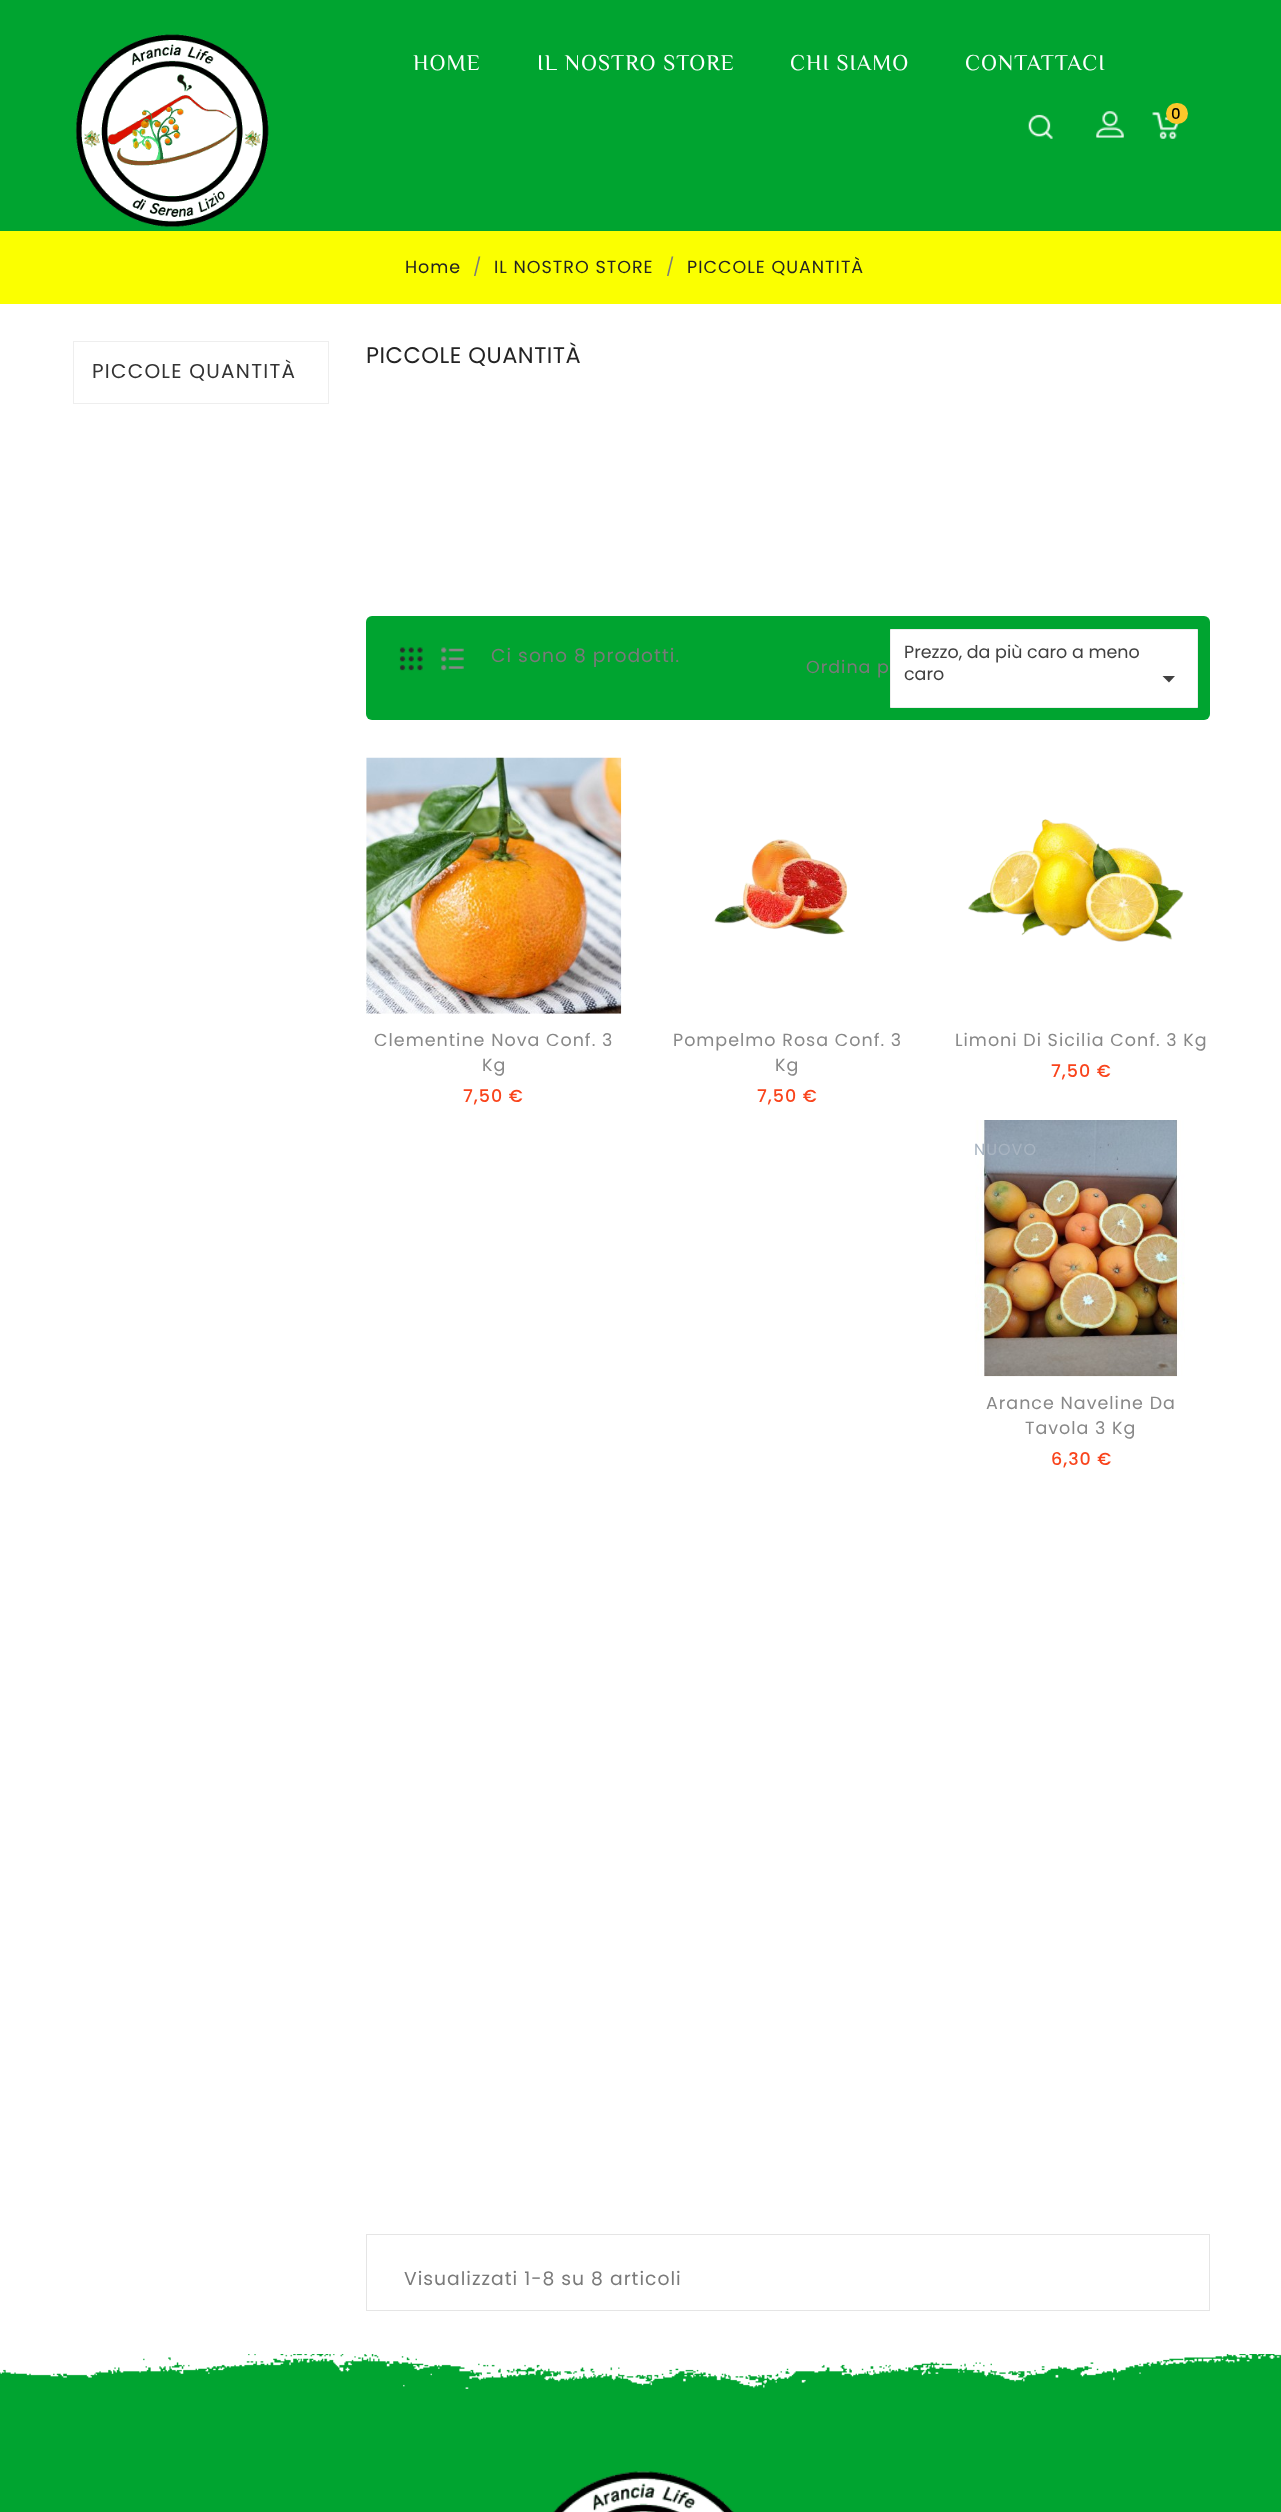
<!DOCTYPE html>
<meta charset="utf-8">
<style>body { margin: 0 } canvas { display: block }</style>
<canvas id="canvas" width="1281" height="2512"></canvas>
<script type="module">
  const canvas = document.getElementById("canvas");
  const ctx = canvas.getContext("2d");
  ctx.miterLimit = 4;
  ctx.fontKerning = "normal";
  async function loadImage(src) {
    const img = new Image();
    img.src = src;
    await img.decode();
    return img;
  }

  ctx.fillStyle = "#ffffff";
  ctx.fillRect(0, 0, 1281, 2512);
  ctx.fillStyle = "#00a430";
  ctx.fillRect(0, 0, 1281, 231);
  ctx.drawImage(await loadImage("img1.png"), 75, 34, 194, 194);
  ctx.letterSpacing = "1px";
  ctx.font = "22.5px Philosopher";
  ctx.fillStyle = "#ffffff";
  ctx.fillText("HOME", 413, 70);
  ctx.fillText("IL NOSTRO STORE", 537, 70);
  ctx.fillText("CHI SIAMO", 790, 70);
  ctx.fillText("CONTATTACI", 965, 70);
  ctx.drawImage(await loadImage("img2.png"), 1028, 114, 25, 25);
  ctx.drawImage(await loadImage("img3.png"), 1096, 111, 28, 27);
  ctx.drawImage(await loadImage("img4.png"), 1152, 112, 27, 27);
  ctx.fillStyle = "#fbc82b";
  ctx.beginPath();
  ctx.roundRect(1166, 103, 22, 21, 10.5);
  ctx.fill();
  ctx.font = "500 15px Poppins";
  ctx.fillStyle = "#000000";
  ctx.fillText("0", 1171, 119);
  ctx.fillStyle = "#fbff00";
  ctx.fillRect(0, 231, 1281, 73);
  ctx.font = "17.5px Poppins";
  ctx.fillStyle = "#232323";
  ctx.fillText("Home", 405, 273);
  ctx.fillStyle = "#7a7a7a";
  ctx.fillText("/", 473, 273);
  ctx.fillStyle = "#232323";
  ctx.fillText("IL NOSTRO STORE", 494, 273);
  ctx.fillStyle = "#7a7a7a";
  ctx.fillText("/", 666, 273);
  ctx.fillStyle = "#232323";
  ctx.fillText("PICCOLE QUANTITÀ", 687, 273);
  ctx.strokeStyle = "#eeeeee";
  ctx.strokeRect(73.5, 341.5, 255, 62);
  ctx.letterSpacing = "1.25px";
  ctx.font = "20px Poppins";
  ctx.fillStyle = "#333333";
  ctx.fillText("PICCOLE QUANTITÀ", 92, 378);
  ctx.letterSpacing = "0.5px";
  ctx.font = "22.5px Poppins";
  ctx.fillStyle = "#232323";
  ctx.fillText("PICCOLE QUANTITÀ", 366, 363);
  ctx.fillStyle = "#00a430";
  ctx.beginPath();
  ctx.roundRect(366, 616, 844, 104, 6);
  ctx.fill();
  ctx.drawImage(await loadImage("img5.png"), 399, 647, 24, 24);
  ctx.drawImage(await loadImage("img6.png"), 441, 647, 23, 24);
  ctx.letterSpacing = "1px";
  ctx.font = "18.75px Poppins";
  ctx.fillStyle = "#7a7a7a";
  ctx.fillText("Ci sono 8 prodotti.", 491, 662);
  ctx.font = "17.5px Poppins";
  ctx.fillText("Ordina p", 806, 673);
  ctx.fillStyle = "#ffffff";
  ctx.beginPath();
  ctx.rect(890.5, 629.5, 307, 78);
  ctx.fill();
  ctx.stroke();
  ctx.letterSpacing = "0px";
  ctx.fillStyle = "#414141";
  ctx.fillText("Prezzo, da più caro a meno", 904, 658);
  ctx.fillText("caro", 904, 680);
  ctx.beginPath();
  ctx.moveTo(1162.5, 676);
  ctx.lineTo(1175, 676);
  ctx.lineTo(1169, 682.5);
  ctx.closePath();
  ctx.fill();
  ctx.drawImage(await loadImage("img7.png"), 366, 757, 256, 257);
  ctx.letterSpacing = "1px";
  ctx.fillStyle = "#888888";
  ctx.fillText("Clementine Nova Conf. 3", 374, 1046);
  ctx.fillText("Kg", 482, 1071);
  ctx.font = "500 17.5px Poppins";
  ctx.fillStyle = "#f9441c";
  ctx.fillText("7,50 €", 463, 1102);
  ctx.drawImage(await loadImage("img8.png"), 714, 839, 134, 96);
  ctx.font = "17.5px Poppins";
  ctx.fillStyle = "#888888";
  ctx.fillText("Pompelmo Rosa Conf. 3", 673, 1046);
  ctx.fillText("Kg", 775, 1071);
  ctx.font = "500 17.5px Poppins";
  ctx.fillStyle = "#f9441c";
  ctx.fillText("7,50 €", 757, 1102);
  ctx.drawImage(await loadImage("img9.png"), 968, 819, 216, 123);
  ctx.font = "17.5px Poppins";
  ctx.fillStyle = "#888888";
  ctx.fillText("Limoni Di Sicilia Conf. 3 Kg", 955, 1046);
  ctx.font = "500 17.5px Poppins";
  ctx.fillStyle = "#f9441c";
  ctx.fillText("7,50 €", 1051, 1077);
  ctx.drawImage(await loadImage("img10.png"), 975, 1120, 210, 257);
  ctx.font = "16px Poppins";
  ctx.fillStyle = "#a8b4c1";
  ctx.fillText("NUOVO", 974, 1155);
  ctx.font = "17.5px Poppins";
  ctx.fillStyle = "#888888";
  ctx.fillText("Arance Naveline Da", 986, 1409);
  ctx.fillText("Tavola 3 Kg", 1025, 1434);
  ctx.font = "500 17.5px Poppins";
  ctx.fillStyle = "#f9441c";
  ctx.fillText("6,30 €", 1051, 1465);
  ctx.strokeStyle = "#e5e5e5";
  ctx.strokeRect(366.5, 2234.5, 843, 76);
  ctx.font = "18.75px Poppins";
  ctx.fillStyle = "#7a7a7a";
  ctx.fillText("Visualizzati 1-8 su 8 articoli", 404, 2285);
  ctx.fillStyle = "#00a430";
  ctx.fillRect(0, 2354, 1281, 158);
  ctx.drawImage(await loadImage("img11.png"), 0, 2354, 1281, 35);
  ctx.drawImage(await loadImage("img12.png"), 553, 2471, 181, 41);
</script>
